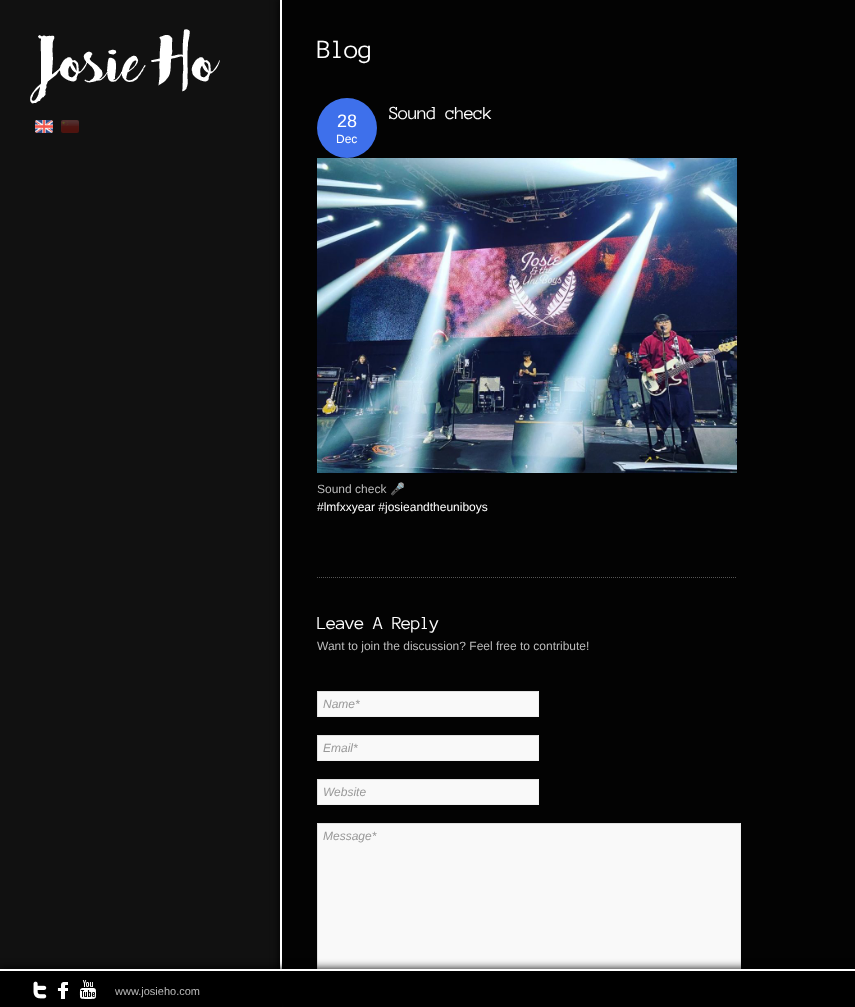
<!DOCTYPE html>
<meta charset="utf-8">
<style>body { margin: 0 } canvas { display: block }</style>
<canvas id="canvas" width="855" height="1007"></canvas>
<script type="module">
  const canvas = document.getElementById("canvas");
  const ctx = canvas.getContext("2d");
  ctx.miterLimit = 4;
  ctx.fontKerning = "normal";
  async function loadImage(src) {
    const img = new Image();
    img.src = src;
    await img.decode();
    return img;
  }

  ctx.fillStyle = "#111111";
  ctx.fillRect(0, 0, 855, 1007);
  ctx.drawImage(await loadImage("img1.png"), 30, 29, 190, 75);
  ctx.fillStyle = "#000000";
  ctx.filter = "blur(5px)";
  ctx.beginPath();
  ctx.rect(280, -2, 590, 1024);
  ctx.fill();
  ctx.filter = "none";
  ctx.fillStyle = "#030303";
  ctx.fillRect(282, 0, 573, 969);
  ctx.strokeStyle = "#ffffff";
  ctx.lineWidth = 2;
  ctx.strokeRect(281, -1, 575, 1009);
  ctx.letterSpacing = "-1px";
  ctx.font = "27px Anonymous Pro";
  ctx.fillStyle = "#ffffff";
  ctx.fillText("Blog", 317, 58);
  ctx.fillStyle = "#3e70eb";
  ctx.beginPath();
  ctx.arc(347, 128, 30, 0, Math.PI * 2);
  ctx.fill();
  ctx.letterSpacing = "0px";
  ctx.font = "18px Liberation Sans";
  ctx.fillStyle = "#ffffff";
  ctx.fillText("28", 337, 127);
  ctx.font = "12px Liberation Sans";
  ctx.fillText("Dec", 336, 143);
  ctx.letterSpacing = "-1px";
  ctx.font = "19px Anonymous Pro";
  ctx.fillText("Sound check", 389, 119);
  ctx.drawImage(await loadImage("img2.png"), 317, 158, 420, 315);
  ctx.letterSpacing = "0px";
  ctx.font = "12px Liberation Sans";
  ctx.fillStyle = "#bbbbbb";
  ctx.fillText("Sound check", 317, 493);
  ctx.font = "12px Noto Color Emoji";
  ctx.fillText("🎤", 390, 493);
  ctx.font = "12px Liberation Sans";
  ctx.fillStyle = "#ffffff";
  ctx.fillText("#lmfxxyear #josieandtheuniboys", 317, 511);
  ctx.beginPath();
  ctx.moveTo(317, 577.5);
  ctx.lineTo(737, 577.5);
  ctx.strokeStyle = "#555555";
  ctx.lineWidth = 1;
  ctx.setLineDash([1, 1]);
  ctx.stroke();
  ctx.letterSpacing = "-1px";
  ctx.font = "19px Anonymous Pro";
  ctx.fillText("Leave A Reply", 317, 629);
  ctx.letterSpacing = "0px";
  ctx.font = "12px Liberation Sans";
  ctx.fillStyle = "#bbbbbb";
  ctx.fillText("Want to join the discussion? Feel free to contribute!", 317, 650);
  ctx.fillStyle = "#f9f9f9";
  ctx.fillRect(318, 692, 220, 24);
  ctx.fillStyle = "#e1e1e1";
  ctx.fillRect(317, 691, 222, 1);
  ctx.fillStyle = "#f0f0f0";
  ctx.fillRect(538, 691, 1, 26);
  ctx.fillRect(317, 716, 222, 1);
  ctx.fillStyle = "#e1e1e1";
  ctx.fillRect(317, 691, 1, 26);
  ctx.font = "italic 12px Liberation Sans";
  ctx.fillStyle = "#999999";
  ctx.fillText("Name*", 323, 708);
  ctx.fillStyle = "#f9f9f9";
  ctx.fillRect(318, 736, 220, 24);
  ctx.fillStyle = "#e1e1e1";
  ctx.fillRect(317, 735, 222, 1);
  ctx.fillStyle = "#f0f0f0";
  ctx.fillRect(538, 735, 1, 26);
  ctx.fillRect(317, 760, 222, 1);
  ctx.fillStyle = "#e1e1e1";
  ctx.fillRect(317, 735, 1, 26);
  ctx.fillStyle = "#999999";
  ctx.fillText("Email*", 323, 752);
  ctx.fillStyle = "#f9f9f9";
  ctx.fillRect(318, 780, 220, 24);
  ctx.fillStyle = "#e1e1e1";
  ctx.fillRect(317, 779, 222, 1);
  ctx.fillStyle = "#f0f0f0";
  ctx.fillRect(538, 779, 1, 26);
  ctx.fillRect(317, 804, 222, 1);
  ctx.fillStyle = "#e1e1e1";
  ctx.fillRect(317, 779, 1, 26);
  ctx.fillStyle = "#999999";
  ctx.fillText("Website", 323, 796);
  ctx.fillStyle = "#f9f9f9";
  ctx.fillRect(318, 824, 422, 145);
  ctx.fillStyle = "#e1e1e1";
  ctx.fillRect(317, 823, 424, 1);
  ctx.fillStyle = "#f0f0f0";
  ctx.fillRect(740, 823, 1, 146);
  ctx.fillStyle = "#e1e1e1";
  ctx.fillRect(317, 823, 1, 146);
  ctx.fillStyle = "#999999";
  ctx.fillText("Message*", 323, 840);
  ctx.drawImage(await loadImage("img3.png"), 35, 120, 18, 13);
  ctx.drawImage(await loadImage("img4.png"), 61, 120, 18, 13);
  ctx.fillStyle = "#000000";
  ctx.filter = "blur(5px)";
  ctx.beginPath();
  ctx.rect(0, 969, 855, 38);
  ctx.fill();
  ctx.filter = "none";
  ctx.fillRect(0, 971, 282, 36);
  ctx.fillStyle = "#ffffff";
  ctx.fillRect(0, 969, 855, 2);
  ctx.drawImage(await loadImage("img5.png"), 33, 981, 14, 18);
  ctx.drawImage(await loadImage("img6.png"), 57, 982, 11, 17);
  ctx.drawImage(await loadImage("img7.png"), 79, 980, 17, 19);
  ctx.font = "11px Liberation Sans";
  ctx.fillStyle = "#bbbbbb";
  ctx.fillText("www.josieho.com", 115, 995);
</script>
